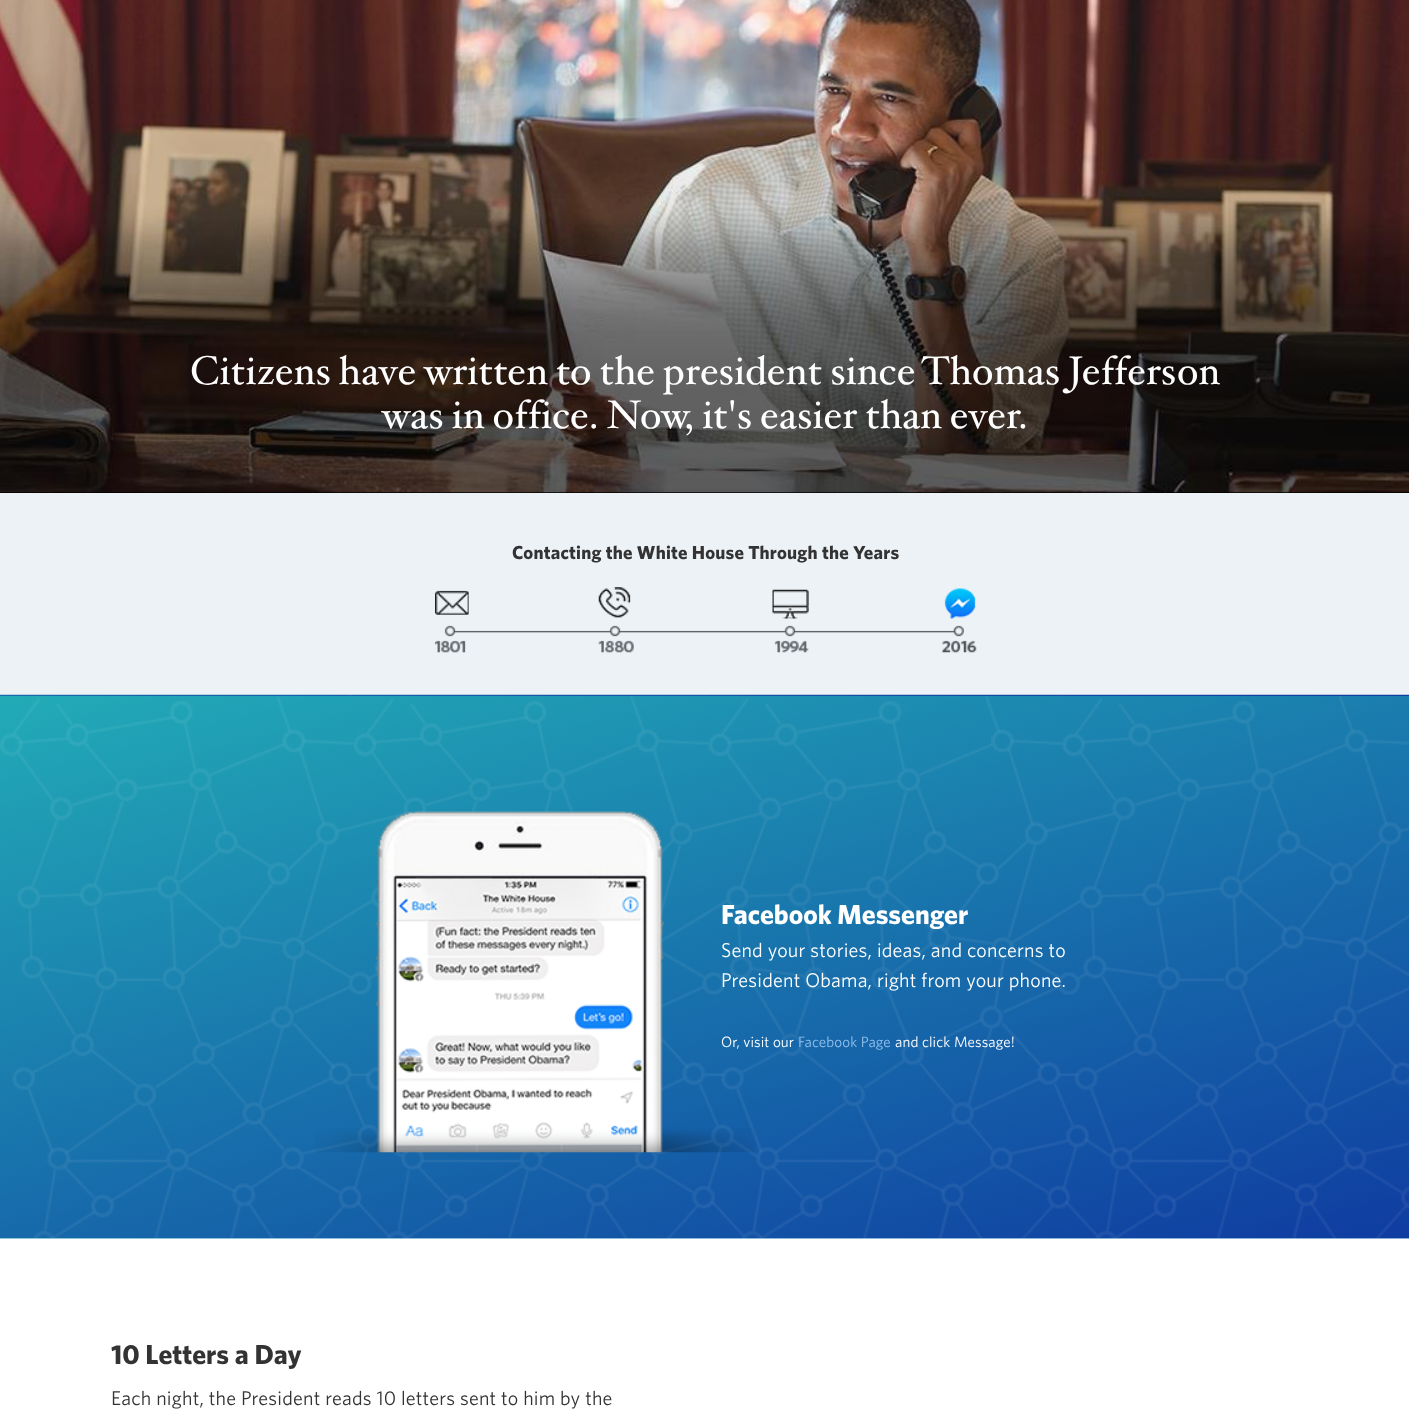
<!DOCTYPE html>
<meta charset="utf-8">
<style>body { margin: 0 } canvas { display: block }</style>
<canvas id="canvas" width="1409" height="1412"></canvas>
<script type="module">
  const canvas = document.getElementById("canvas");
  const ctx = canvas.getContext("2d");
  ctx.miterLimit = 4;
  ctx.fontKerning = "normal";
  async function loadImage(src) {
    const img = new Image();
    img.src = src;
    await img.decode();
    return img;
  }

  ctx.fillStyle = "#ffffff";
  ctx.fillRect(0, 0, 1409, 1412);
  ctx.fillStyle = "#000000";
  ctx.fillRect(0, 492, 1409, 1);
  ctx.drawImage(await loadImage("img1.png"), 0, 0, 1409, 493);
  ctx.font = "300 40px 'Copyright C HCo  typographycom'";
  ctx.fillStyle = "#ffffff";
  ctx.fillText("Citizens have written to the president since Thomas Jefferson", 190, 384);
  ctx.fillText("was in office. Now, it's easier than ever.", 382, 428);
  ctx.fillStyle = "#edf2f6";
  ctx.fillRect(0, 493, 1409, 202);
  ctx.letterSpacing = "0.2px";
  ctx.font = "18.75px 'Copyright C HCo  typographycom'";
  ctx.fillStyle = "#333333";
  ctx.fillText("Contacting the White House Through the Years", 512, 559);
  ctx.drawImage(await loadImage("img2.png"), 435, 587, 542, 66);
  ctx.drawImage(await loadImage("img3.png"), 0, 694, 1409, 545);
  ctx.drawImage(await loadImage("img4.png"), 315, 811, 440, 342);
  ctx.letterSpacing = "0px";
  ctx.font = "27.5px 'Copyright C HCo  typographycom'";
  ctx.fillStyle = "#ffffff";
  ctx.fillText("Facebook Messenger", 721, 924);
  ctx.letterSpacing = "0.2px";
  ctx.font = "300 20px 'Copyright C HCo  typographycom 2'";
  ctx.fillText("Send your stories, ideas, and concerns to", 721, 957);
  ctx.fillText("President Obama, right from your phone.", 721, 987);
  ctx.letterSpacing = "0.1px";
  ctx.font = "300 15px 'Copyright C HCo  typographycom 2'";
  ctx.fillText("Or, visit our", 721, 1047);
  ctx.fillStyle = "#92c0ec";
  ctx.fillText("Facebook Page", 798, 1047);
  ctx.fillStyle = "#ffffff";
  ctx.fillText("and click Message!", 895, 1047);
  ctx.letterSpacing = "0px";
  ctx.font = "27.5px 'Copyright C HCo  typographycom'";
  ctx.fillStyle = "#333333";
  ctx.fillText("10 Letters a Day", 111, 1364);
  ctx.letterSpacing = "0.2px";
  ctx.font = "300 20px 'Copyright C HCo  typographycom 2'";
  ctx.fillText("Each night, the President reads 10 letters sent to him by the", 111, 1405);
</script>
